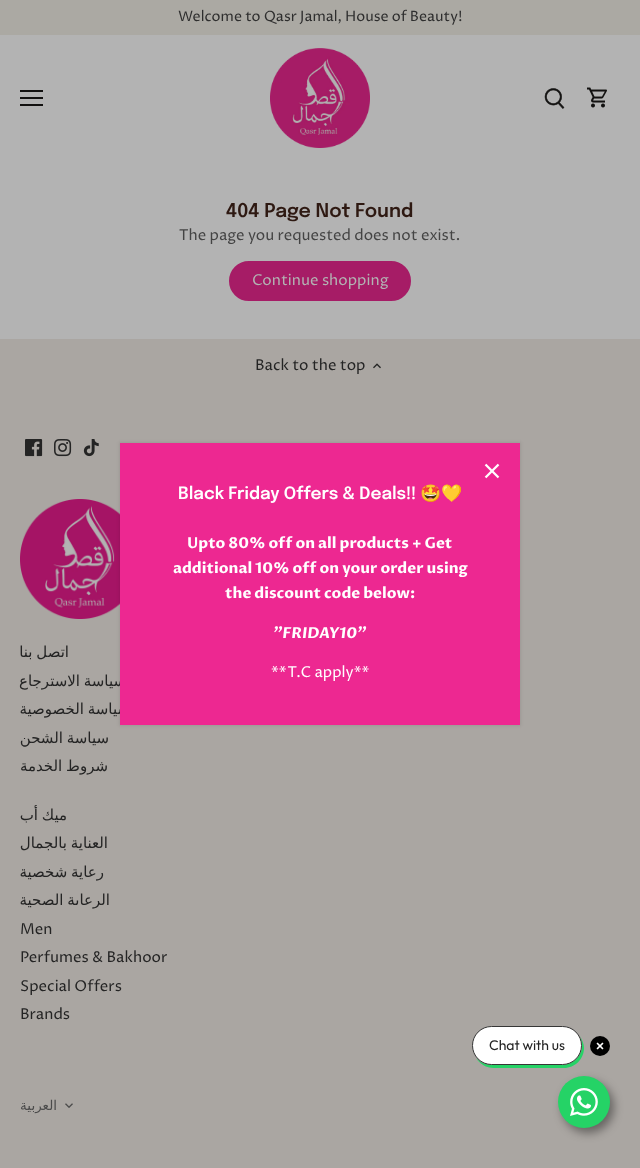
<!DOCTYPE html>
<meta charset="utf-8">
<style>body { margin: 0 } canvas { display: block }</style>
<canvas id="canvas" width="640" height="1168"></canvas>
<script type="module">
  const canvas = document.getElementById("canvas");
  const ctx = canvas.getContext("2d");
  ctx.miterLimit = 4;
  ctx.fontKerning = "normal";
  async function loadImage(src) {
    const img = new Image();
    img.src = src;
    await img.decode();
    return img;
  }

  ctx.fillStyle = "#aaa6a2";
  ctx.fillRect(0, 0, 640, 1168);
  ctx.fillStyle = "#b3b3b3";
  ctx.fillRect(0, 35, 640, 304);
  ctx.fillStyle = "#aba9a3";
  ctx.fillRect(0, 0, 640, 35);
  ctx.font = "14.25px Proza Libre";
  ctx.fillStyle = "#2e2e2e";
  ctx.fillText("Welcome to Qasr Jamal, House of Beauty!", 178, 21);
  ctx.fillStyle = "#121110";
  ctx.fillRect(20, 90, 23, 2);
  ctx.fillRect(20, 97, 23, 2);
  ctx.fillRect(20, 104, 23, 2);
  ctx.drawImage(await loadImage("img1.png"), 270, 48, 100, 100);
  ctx.drawImage(await loadImage("img2.png"), 544, 88, 21, 21);
  ctx.drawImage(await loadImage("img3.png"), 587, 87, 20, 21);
  ctx.font = "600 19px Epilogue";
  ctx.fillStyle = "#2e1912";
  ctx.fillText("404 Page Not Found", 226, 217);
  ctx.font = "15px Proza Libre";
  ctx.fillStyle = "#444444";
  ctx.fillText("The page you requested does not exist.", 179, 240);
  ctx.fillStyle = "#a61c66";
  ctx.beginPath();
  ctx.roundRect(230, 262, 180, 38, 19);
  ctx.fill();
  ctx.strokeStyle = "#a61c66";
  ctx.lineWidth = 2;
  ctx.stroke();
  ctx.fillStyle = "#b3b3b3";
  ctx.fillText("Continue shopping", 252, 285);
  ctx.fillStyle = "#242424";
  ctx.fillText("Back to the top", 255, 370);
  ctx.drawImage(await loadImage("img4.png"), 373, 363, 8, 6);
  ctx.drawImage(await loadImage("img5.png"), 25, 439, 18, 18);
  ctx.drawImage(await loadImage("img6.png"), 54, 439, 18, 18);
  ctx.drawImage(await loadImage("img7.png"), 83, 439, 16, 18);
  ctx.drawImage(await loadImage("img8.png"), 20, 499, 100, 120);
  ctx.wordSpacing = "-1px";
  ctx.direction = "rtl";
  ctx.font = "15px DejaVu Sans";
  ctx.fillText("اتصل بنا", 69, 657);
  ctx.fillText("سياسة الاسترجاع", 126, 686);
  ctx.fillText("سياسة الخصوصية", 130, 714);
  ctx.fillText("سياسة الشحن", 109, 743);
  ctx.fillText("شروط الخدمة", 108, 771);
  ctx.fillText("ميك أب", 67, 820);
  ctx.fillText("العناية بالجمال", 108, 848);
  ctx.fillText("رعاية شخصية", 104, 877);
  ctx.fillText("الرعاىة الصحية", 110, 905);
  ctx.wordSpacing = "0px";
  ctx.direction = "ltr";
  ctx.font = "15px Proza Libre";
  ctx.fillText("Men", 20, 934);
  ctx.fillText("Perfumes & Bakhoor", 20, 962);
  ctx.fillText("Special Offers", 20, 991);
  ctx.fillText("Brands", 20, 1019);
  ctx.direction = "rtl";
  ctx.font = "13.5px DejaVu Sans";
  ctx.fillStyle = "#4b4b4b";
  ctx.fillText("العربية", 57, 1110);
  ctx.drawImage(await loadImage("img9.png"), 65, 1103, 8, 5);
  ctx.fillStyle = "rgba(0, 0, 0, 0.08)";
  ctx.filter = "blur(1.5px)";
  ctx.beginPath();
  ctx.rect(119, 442, 402, 284);
  ctx.fill();
  ctx.filter = "none";
  ctx.fillStyle = "#ed2891";
  ctx.fillRect(120, 443, 400, 282);
  ctx.drawImage(await loadImage("img10.png"), 484, 463, 16, 16);
  ctx.direction = "ltr";
  ctx.font = "600 17px Epilogue";
  ctx.fillStyle = "#ffffff";
  ctx.fillText("Black Friday Offers & Deals!!", 178, 499);
  ctx.font = "bold 17px Noto Color Emoji";
  ctx.fillText("🤩💛", 420, 499);
  ctx.font = "bold 15px Proza Libre";
  ctx.fillText("Upto 80% off on all products + Get", 187, 548);
  ctx.fillText("additional 10% off on your order using", 173, 573);
  ctx.fillText("the discount code below:", 225, 598);
  ctx.font = "italic bold 15px Proza Libre";
  ctx.fillText("\"FRIDAY10\"", 273, 638);
  ctx.font = "15px Proza Libre";
  ctx.fillText("**T.C apply**", 271, 677);
  ctx.fillStyle = "rgba(0, 0, 0, 0.4)";
  ctx.filter = "blur(5px)";
  ctx.beginPath();
  ctx.roundRect(562, 1081, 52, 52, 26);
  ctx.fill();
  ctx.filter = "none";
  ctx.fillStyle = "#25d366";
  ctx.beginPath();
  ctx.moveTo(476, 1058);
  ctx.bezierCurveTo(480, 1064, 486, 1068, 494, 1068);
  ctx.lineTo(564, 1068);
  ctx.bezierCurveTo(575, 1068, 584, 1059, 584, 1048);
  ctx.bezierCurveTo(584, 1044, 582, 1040, 580, 1036);
  ctx.bezierCurveTo(581, 1039, 582, 1042, 582, 1046);
  ctx.bezierCurveTo(582, 1056, 573, 1065, 562, 1065);
  ctx.lineTo(492, 1065);
  ctx.bezierCurveTo(485, 1065, 480, 1062, 476, 1058);
  ctx.closePath();
  ctx.fill();
  ctx.fillStyle = "#ffffff";
  ctx.beginPath();
  ctx.roundRect(472.5, 1026.5, 109, 38, 19);
  ctx.fill();
  ctx.strokeStyle = "#363636";
  ctx.lineWidth = 1;
  ctx.stroke();
  ctx.font = "14px Outfit";
  ctx.fillStyle = "#242424";
  ctx.fillText("Chat with us", 489, 1050);
  ctx.fillStyle = "#000000";
  ctx.beginPath();
  ctx.arc(600, 1046, 10, 0, Math.PI * 2);
  ctx.fill();
  ctx.drawImage(await loadImage("img11.png"), 596, 1042, 8, 8);
  ctx.fillStyle = "#25d366";
  ctx.beginPath();
  ctx.arc(584, 1102, 26, 0, Math.PI * 2);
  ctx.fill();
  ctx.drawImage(await loadImage("img12.png"), 570, 1088, 28, 28);
</script>
